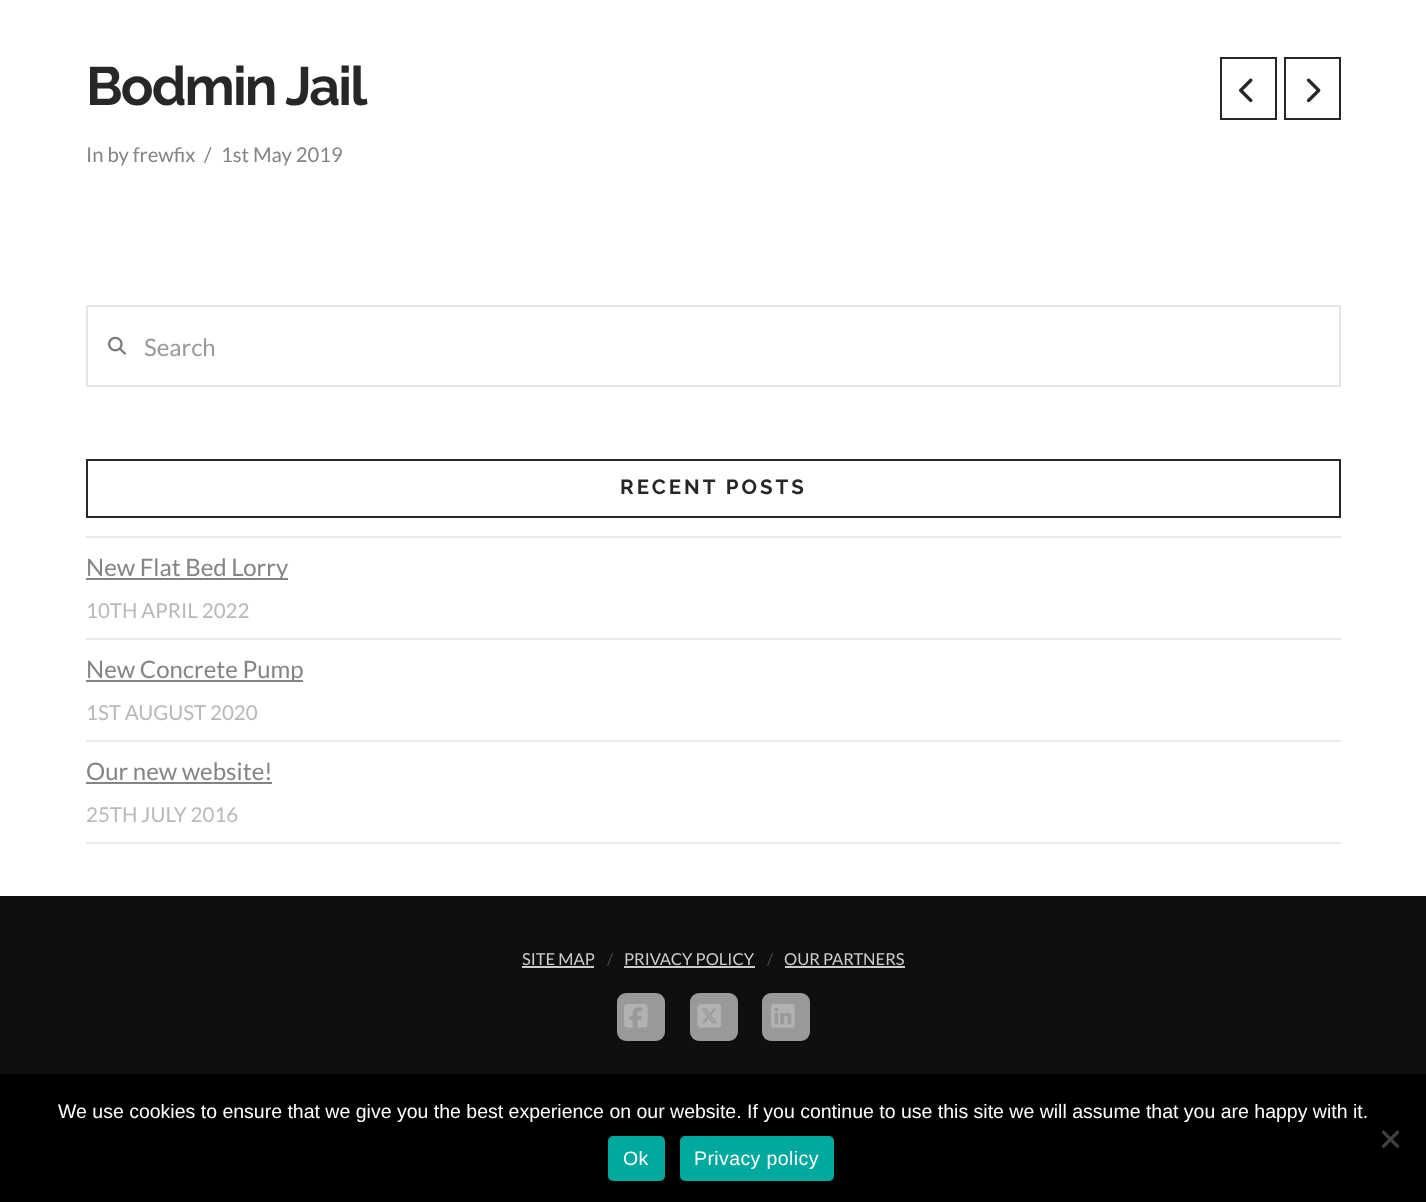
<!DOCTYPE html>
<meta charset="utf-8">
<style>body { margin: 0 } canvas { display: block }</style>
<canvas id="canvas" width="1426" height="1202"></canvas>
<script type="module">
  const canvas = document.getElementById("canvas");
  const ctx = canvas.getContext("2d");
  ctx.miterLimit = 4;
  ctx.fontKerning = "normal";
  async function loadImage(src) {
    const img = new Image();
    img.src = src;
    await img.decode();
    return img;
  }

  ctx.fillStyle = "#ffffff";
  ctx.fillRect(0, 0, 1426, 1202);
  ctx.letterSpacing = "-1.9px";
  ctx.font = "bold 54px Raleway";
  ctx.fillStyle = "#272727";
  ctx.fillText("Bodmin Jail", 86, 105);
  ctx.strokeStyle = "#272727";
  ctx.lineWidth = 2;
  ctx.strokeRect(1221, 58, 55, 61);
  ctx.drawImage(await loadImage("img1.png"), 1239, 78, 14, 25);
  ctx.strokeRect(1285, 58, 55, 61);
  ctx.drawImage(await loadImage("img2.png"), 1306, 78, 15, 25);
  ctx.letterSpacing = "0px";
  ctx.font = "20.25px Lato";
  ctx.fillStyle = "#848484";
  ctx.fillText("In by frewfix", 86, 162);
  ctx.fillText("/", 204, 162);
  ctx.fillText("1st May 2019", 221, 162);
  ctx.strokeStyle = "#e6e6e6";
  ctx.strokeRect(87, 306, 1253, 80);
  ctx.drawImage(await loadImage("img3.png"), 108, 336, 18, 19);
  ctx.font = "24px Lato";
  ctx.fillStyle = "#999999";
  ctx.fillText("Search", 144, 356);
  ctx.strokeStyle = "#272727";
  ctx.strokeRect(87, 460, 1253, 57);
  ctx.letterSpacing = "3px";
  ctx.font = "bold 20.5px Raleway";
  ctx.fillStyle = "#272727";
  ctx.fillText("RECENT POSTS", 620, 494);
  ctx.fillStyle = "#e9e9e9";
  ctx.fillRect(86, 536, 1255, 2);
  ctx.fillStyle = "#848484";
  ctx.fillRect(86, 578, 202, 2);
  ctx.letterSpacing = "0px";
  ctx.font = "24px Lato";
  ctx.fillText("New Flat Bed Lorry", 86, 576);
  ctx.font = "20.5px Lato";
  ctx.fillStyle = "#b8b8b8";
  ctx.fillText("10TH APRIL 2022", 86, 618);
  ctx.fillStyle = "#e9e9e9";
  ctx.fillRect(86, 638, 1255, 2);
  ctx.fillStyle = "#848484";
  ctx.fillRect(86, 680, 217, 2);
  ctx.font = "24px Lato";
  ctx.fillText("New Concrete Pump", 86, 678);
  ctx.font = "20.5px Lato";
  ctx.fillStyle = "#b8b8b8";
  ctx.fillText("1ST AUGUST 2020", 86, 720);
  ctx.fillStyle = "#e9e9e9";
  ctx.fillRect(86, 740, 1255, 2);
  ctx.fillRect(86, 842, 1255, 2);
  ctx.font = "24px Lato";
  ctx.fillStyle = "#848484";
  ctx.fillText("Our new website!", 86, 780);
  ctx.fillRect(86, 782, 186, 2);
  ctx.font = "20.5px Lato";
  ctx.fillStyle = "#b8b8b8";
  ctx.fillText("25TH JULY 2016", 86, 822);
  ctx.fillStyle = "#0f0f0f";
  ctx.fillRect(0, 896, 1426, 178);
  ctx.font = "16.5px Lato";
  ctx.fillStyle = "#cccccc";
  ctx.fillText("SITE MAP", 522, 965);
  ctx.fillRect(522, 966, 72, 2);
  ctx.fillStyle = "#4b4b4b";
  ctx.fillText("/", 607, 965);
  ctx.fillStyle = "#cccccc";
  ctx.fillText("PRIVACY POLICY", 624, 965);
  ctx.fillRect(624, 966, 131, 2);
  ctx.fillStyle = "#4b4b4b";
  ctx.fillText("/", 767, 965);
  ctx.fillStyle = "#cccccc";
  ctx.fillText("OUR PARTNERS", 784, 965);
  ctx.fillRect(785, 966, 120, 2);
  ctx.fillStyle = "#999999";
  ctx.beginPath();
  ctx.roundRect(617, 993, 48, 48, 9);
  ctx.fill();
  ctx.drawImage(await loadImage("img4.png"), 624, 1004, 24, 24);
  ctx.beginPath();
  ctx.roundRect(690, 993, 48, 48, 9);
  ctx.fill();
  ctx.drawImage(await loadImage("img5.png"), 697, 1004, 24, 24);
  ctx.beginPath();
  ctx.roundRect(762, 993, 48, 48, 9);
  ctx.fill();
  ctx.drawImage(await loadImage("img6.png"), 771, 1004, 24, 24);
  ctx.fillStyle = "#000000";
  ctx.fillRect(0, 1074, 1426, 128);
  ctx.font = "19.5px Liberation Sans";
  ctx.fillStyle = "#ffffff";
  ctx.fillText("We use cookies to ensure that we give you the best experience on our website. If you continue to use this site we will assume that you are happy with it.", 58, 1118);
  ctx.fillStyle = "#404040";
  ctx.beginPath();
  ctx.moveTo(1397.5, 1130);
  ctx.lineTo(1399.5, 1132.5);
  ctx.lineTo(1383.5, 1148.5);
  ctx.lineTo(1381.5, 1146);
  ctx.closePath();
  ctx.fill();
  ctx.beginPath();
  ctx.moveTo(1381.5, 1132.5);
  ctx.lineTo(1383.5, 1130);
  ctx.lineTo(1399.5, 1146);
  ctx.lineTo(1397.5, 1148.5);
  ctx.closePath();
  ctx.fill();
  ctx.fillStyle = "#00a99d";
  ctx.beginPath();
  ctx.roundRect(608, 1136, 57, 45, 5);
  ctx.fill();
  ctx.letterSpacing = "0.4px";
  ctx.fillStyle = "#ffffff";
  ctx.fillText("Ok", 623, 1165);
  ctx.fillStyle = "#00a99d";
  ctx.beginPath();
  ctx.roundRect(680, 1136, 154, 45, 5);
  ctx.fill();
  ctx.fillStyle = "#ffffff";
  ctx.fillText("Privacy policy", 694, 1165);
</script>
